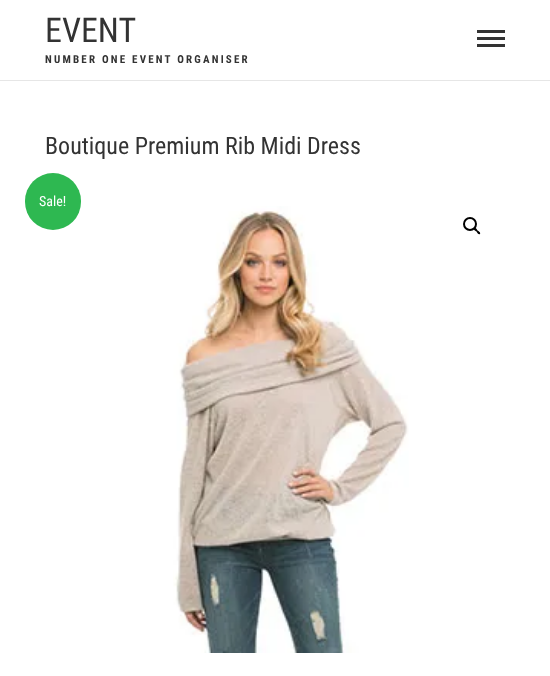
<!DOCTYPE html>
<meta charset="utf-8">
<style>body { margin: 0 } canvas { display: block }</style>
<canvas id="canvas" width="550" height="676"></canvas>
<script type="module">
  const canvas = document.getElementById("canvas");
  const ctx = canvas.getContext("2d");
  ctx.miterLimit = 4;
  ctx.fontKerning = "normal";
  async function loadImage(src) {
    const img = new Image();
    img.src = src;
    await img.decode();
    return img;
  }

  ctx.fillStyle = "#ffffff";
  ctx.fillRect(0, 0, 550, 676);
  ctx.fillStyle = "#e6e6e6";
  ctx.fillRect(0, 80, 550, 1);
  ctx.font = "34px Roboto Condensed";
  ctx.fillStyle = "#333333";
  ctx.fillText("EVENT", 45, 42);
  ctx.letterSpacing = "2.2px";
  ctx.font = "bold 11px Roboto Condensed";
  ctx.fillText("NUMBER ONE EVENT ORGANISER", 45, 63);
  ctx.fillRect(477, 30, 28, 3);
  ctx.fillRect(477, 37, 28, 3);
  ctx.fillRect(477, 44, 28, 3);
  ctx.letterSpacing = "0px";
  ctx.font = "24px Roboto Condensed";
  ctx.fillText("Boutique Premium Rib Midi Dress", 45, 154);
  ctx.fillStyle = "#2eb851";
  ctx.beginPath();
  ctx.roundRect(25, 173, 56, 57, 28);
  ctx.fill();
  ctx.font = "14px Roboto Condensed";
  ctx.fillStyle = "#ffffff";
  ctx.fillText("Sale!", 39, 206);
  ctx.drawImage(await loadImage("img1.png"), 173, 206, 236, 447);
  ctx.beginPath();
  ctx.arc(470, 224, 6, 0, Math.PI * 2);
  ctx.strokeStyle = "#000000";
  ctx.lineWidth = 2;
  ctx.stroke();
  ctx.fillStyle = "#000000";
  ctx.beginPath();
  ctx.moveTo(474, 228);
  ctx.bezierCurveTo(475.5, 227, 477, 229.5, 477.5, 230.5);
  ctx.bezierCurveTo(478.5, 231, 481, 232.5, 480, 234);
  ctx.bezierCurveTo(478.5, 235, 477, 232.5, 476.5, 231.5);
  ctx.bezierCurveTo(475.5, 231, 473, 229.5, 474, 228);
  ctx.closePath();
  ctx.fill();
</script>
